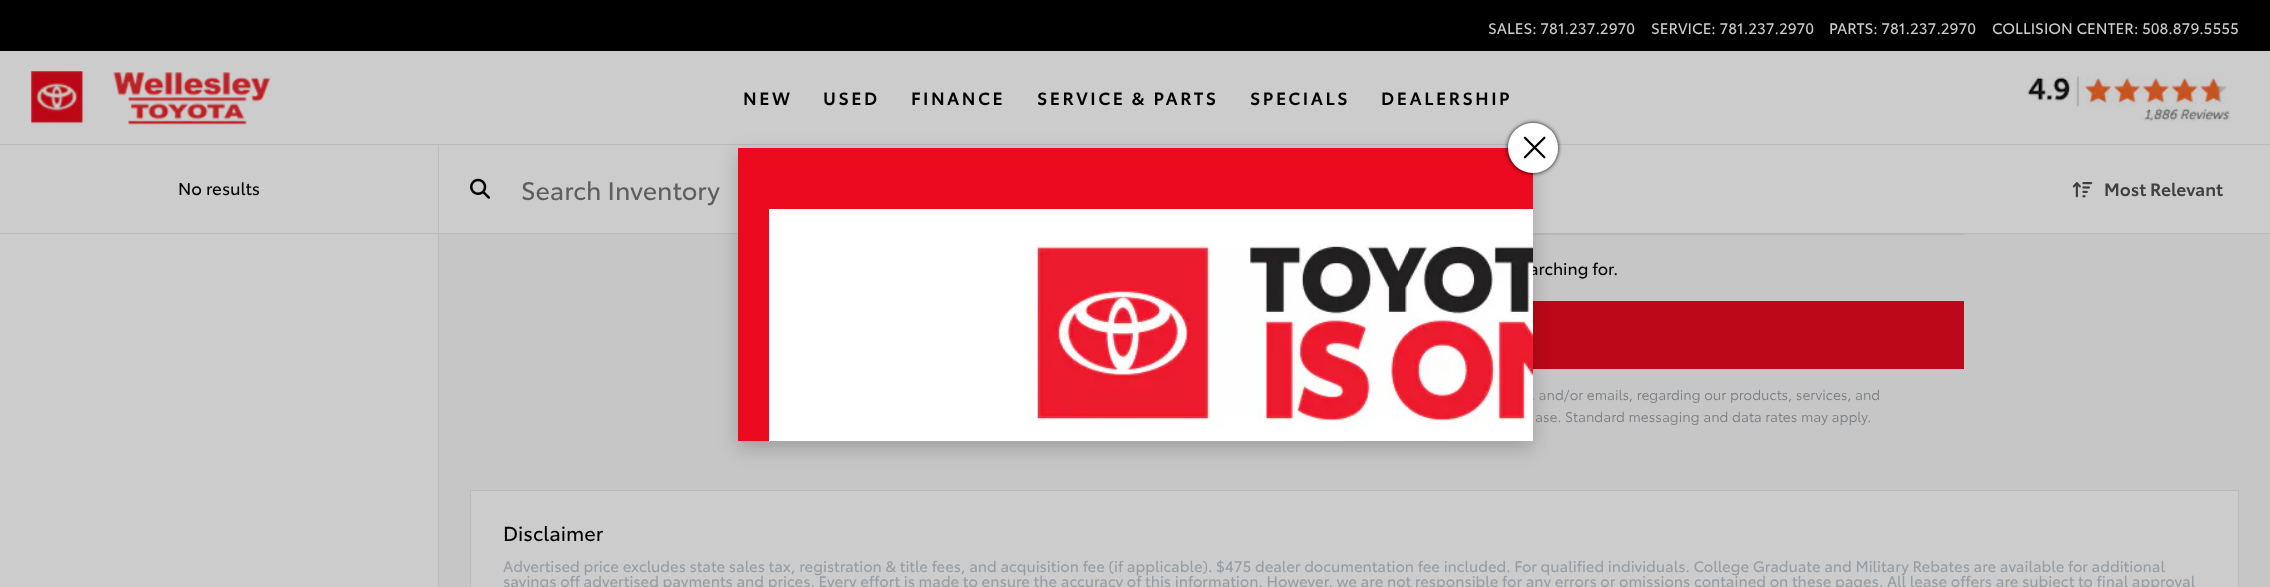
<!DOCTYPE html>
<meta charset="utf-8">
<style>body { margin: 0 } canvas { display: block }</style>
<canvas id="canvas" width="2270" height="587"></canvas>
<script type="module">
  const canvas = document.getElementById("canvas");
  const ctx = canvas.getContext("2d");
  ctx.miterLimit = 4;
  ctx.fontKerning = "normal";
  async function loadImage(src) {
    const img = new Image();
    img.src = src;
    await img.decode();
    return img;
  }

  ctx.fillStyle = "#c6c6c6";
  ctx.fillRect(0, 0, 2270, 587);
  ctx.fillStyle = "#000000";
  ctx.fillRect(0, 0, 2270, 51);
  ctx.font = "15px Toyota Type";
  ctx.fillStyle = "#cccccc";
  ctx.fillText("SALES: 781.237.2970", 1488, 34);
  ctx.fillText("SERVICE: 781.237.2970", 1651, 34);
  ctx.fillText("PARTS: 781.237.2970", 1829, 34);
  ctx.fillText("COLLISION CENTER: 508.879.5555", 1992, 34);
  ctx.fillRect(0, 51, 2270, 93);
  ctx.fillStyle = "#bababa";
  ctx.fillRect(0, 144, 2270, 1);
  ctx.drawImage(await loadImage("img1.png"), 31, 71, 53, 53);
  ctx.drawImage(await loadImage("img2.png"), 113, 72, 158, 53);
  ctx.letterSpacing = "2.5px";
  ctx.font = "600 17.5px Toyota Type";
  ctx.fillStyle = "#000000";
  ctx.fillText("NEW", 743, 105);
  ctx.fillText("USED", 823, 105);
  ctx.fillText("FINANCE", 911, 105);
  ctx.fillText("SERVICE & PARTS", 1037, 105);
  ctx.fillText("SPECIALS", 1250, 105);
  ctx.fillText("DEALERSHIP", 1381, 105);
  ctx.drawImage(await loadImage("img3.png"), 2026, 75, 205, 47);
  ctx.fillStyle = "#cccccc";
  ctx.fillRect(0, 145, 2270, 88);
  ctx.fillStyle = "#bababa";
  ctx.fillRect(0, 233, 2270, 1);
  ctx.fillStyle = "#b8b8b8";
  ctx.fillRect(1533, 234, 431, 1);
  ctx.fillStyle = "#bc0818";
  ctx.fillRect(1533, 301, 431, 68);
  ctx.fillStyle = "rgba(0, 0, 0, 0.2)";
  ctx.filter = "blur(9.5px)";
  ctx.beginPath();
  ctx.rect(738, 154, 795, 294);
  ctx.fill();
  ctx.filter = "none";
  ctx.letterSpacing = "0px";
  ctx.font = "16.5px Toyota Type";
  ctx.fillStyle = "#000000";
  ctx.fillText("arching for.", 1529, 275);
  ctx.font = "13.75px 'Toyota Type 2'";
  ctx.fillStyle = "#7a7c7f";
  ctx.fillText(", and/or emails, regarding our products, services, and", 1531, 400);
  ctx.fillStyle = "#eb0a1e";
  ctx.fillRect(738, 148, 795, 293);
  ctx.save();
  ctx.beginPath();
  ctx.moveTo(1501, 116);
  ctx.lineTo(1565, 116);
  ctx.lineTo(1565, 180);
  ctx.lineTo(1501, 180);
  ctx.closePath();
  ctx.moveTo(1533, 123);
  ctx.bezierCurveTo(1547, 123, 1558, 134, 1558, 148);
  ctx.bezierCurveTo(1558, 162, 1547, 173, 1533, 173);
  ctx.bezierCurveTo(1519, 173, 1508, 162, 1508, 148);
  ctx.bezierCurveTo(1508, 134, 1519, 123, 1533, 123);
  ctx.closePath();
  ctx.clip("evenodd");
  ctx.fillStyle = "#000000";
  ctx.filter = "blur(2px)";
  ctx.beginPath();
  ctx.roundRect(1508, 123, 50, 50, 25);
  ctx.fill();
  ctx.filter = "none";
  ctx.restore();
  ctx.fillStyle = "#ffffff";
  ctx.beginPath();
  ctx.arc(1533, 148, 25, 0, Math.PI * 2);
  ctx.fill();
  ctx.drawImage(await loadImage("img4.png"), 1523, 136, 23, 23);
  ctx.drawImage(await loadImage("img5.png"), 769, 209, 764, 232);
  ctx.fillStyle = "#bababa";
  ctx.fillRect(438, 145, 1, 88);
  ctx.font = "17px Toyota Type";
  ctx.fillStyle = "#000000";
  ctx.fillText("No results", 178, 195);
  ctx.drawImage(await loadImage("img6.png"), 470, 178, 20, 21);
  ctx.font = "25px Toyota Type";
  ctx.fillStyle = "#5e5e5e";
  ctx.fillText("Search Inventory", 521, 200);
  ctx.drawImage(await loadImage("img7.png"), 2072, 182, 21, 16);
  ctx.font = "600 17.5px Toyota Type";
  ctx.fillStyle = "#404040";
  ctx.fillText("Most Relevant", 2104, 196);
  ctx.fillStyle = "#cccccc";
  ctx.fillRect(0, 234, 438, 353);
  ctx.fillStyle = "#bababa";
  ctx.fillRect(438, 234, 1, 353);
  ctx.font = "13.75px 'Toyota Type 2'";
  ctx.fillStyle = "#7a7c7f";
  ctx.fillText("ase. Standard messaging and data rates may apply.", 1535, 422);
  ctx.fillStyle = "#cccccc";
  ctx.beginPath();
  ctx.rect(470.5, 490.5, 1768, 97);
  ctx.fill();
  ctx.strokeStyle = "#bababa";
  ctx.stroke();
  ctx.font = "20px Toyota Type";
  ctx.fillStyle = "#000000";
  ctx.fillText("Disclaimer", 503, 541);
  ctx.font = "15px Toyota Type";
  ctx.fillStyle = "#969da3";
  ctx.fillText("Advertised price excludes state sales tax, registration & title fees, and acquisition fee (if applicable). $475 dealer documentation fee included. For qualified individuals. College Graduate and Military Rebates are available for additional", 503, 572);
  ctx.fillText("savings off advertised payments and prices. Every effort is made to ensure the accuracy of this information. However, we are not responsible for any errors or omissions contained on these pages. All lease offers are subject to final approval", 503, 587);
</script>
